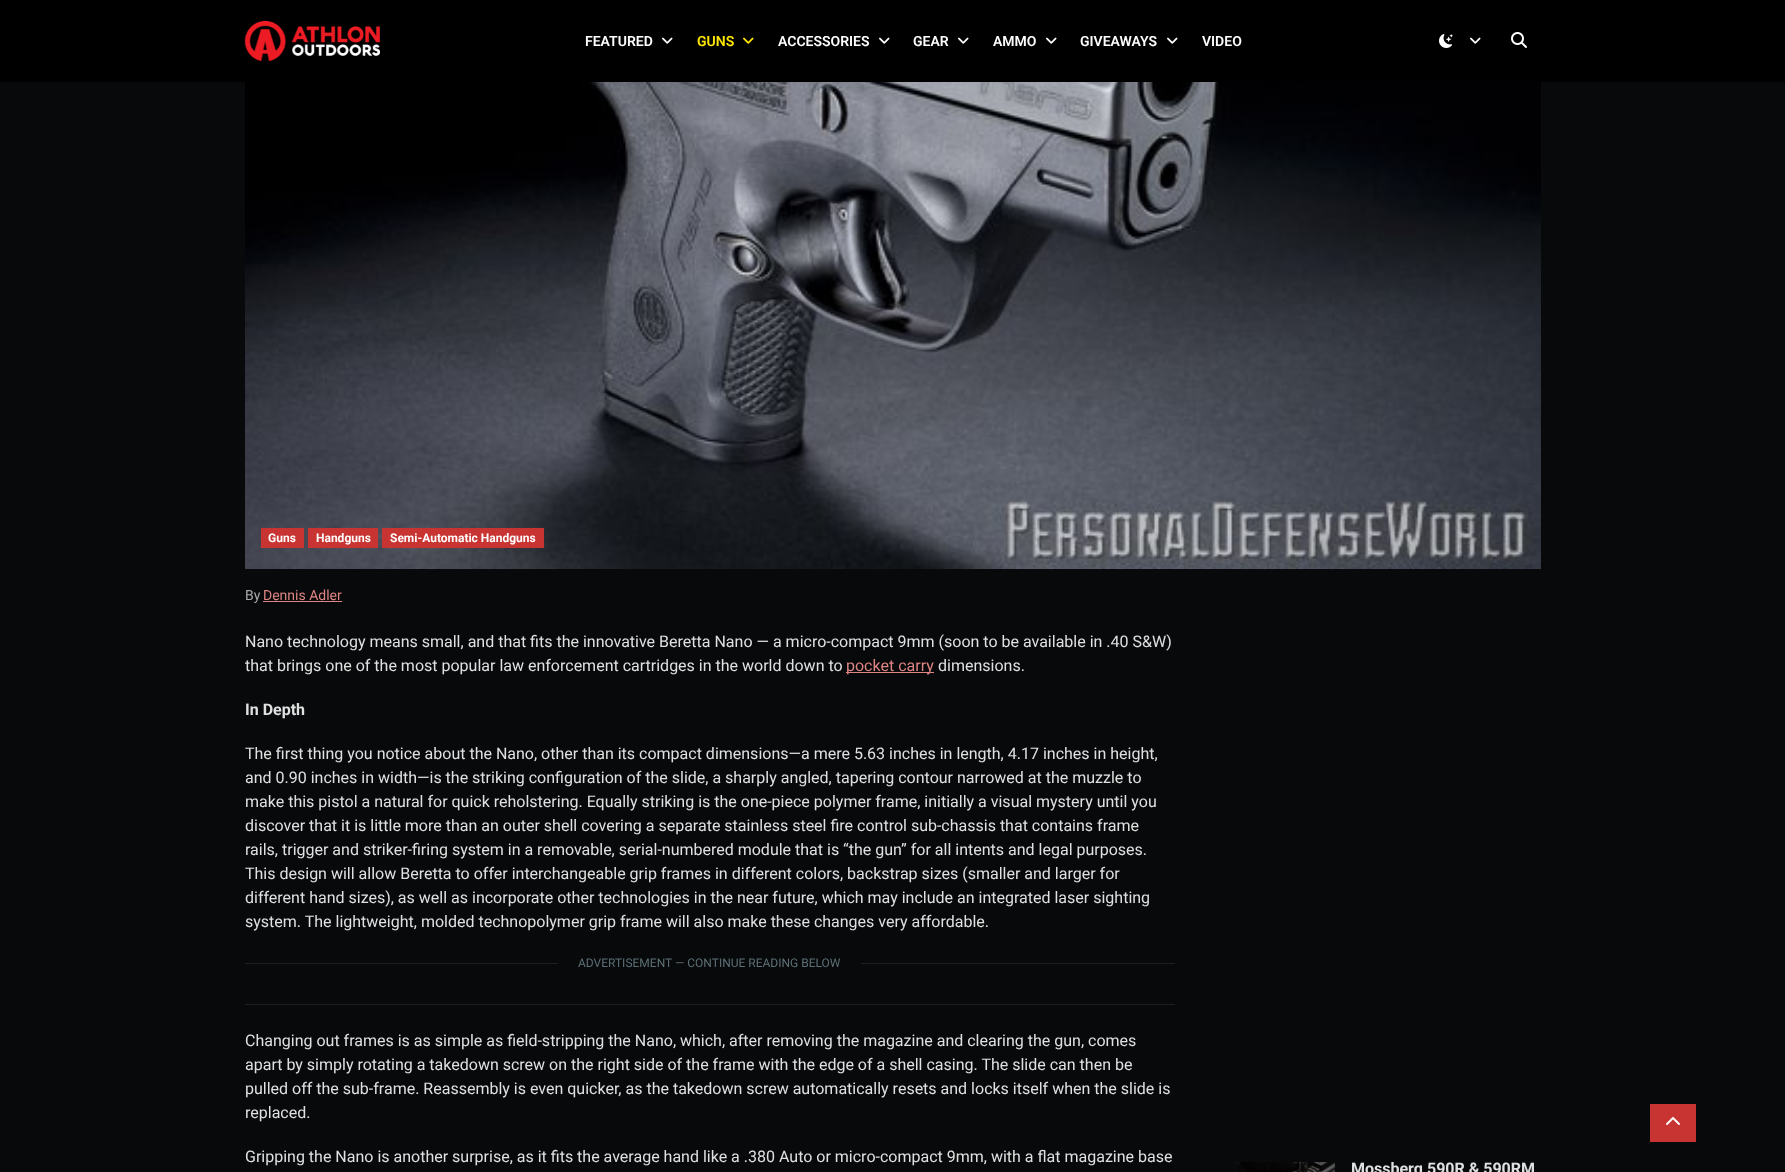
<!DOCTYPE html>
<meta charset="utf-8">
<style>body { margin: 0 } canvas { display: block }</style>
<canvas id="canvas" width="1785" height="1172"></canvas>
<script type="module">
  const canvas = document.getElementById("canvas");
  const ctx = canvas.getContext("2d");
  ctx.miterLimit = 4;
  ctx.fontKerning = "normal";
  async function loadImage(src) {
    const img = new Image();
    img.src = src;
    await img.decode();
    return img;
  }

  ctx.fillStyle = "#07090a";
  ctx.fillRect(0, 0, 1785, 1172);
  ctx.fillStyle = "#000000";
  ctx.fillRect(0, 0, 1785, 82);
  ctx.drawImage(await loadImage("img1.png"), 244, 21, 136, 40);
  ctx.font = "600 14px Roboto";
  ctx.fillStyle = "#ffffff";
  ctx.fillText("FEATURED", 585, 46);
  ctx.drawImage(await loadImage("img2.png"), 662, 37, 11, 7);
  ctx.fillStyle = "#ffe800";
  ctx.fillText("GUNS", 697, 46);
  ctx.drawImage(await loadImage("img3.png"), 743, 37, 11, 7);
  ctx.fillStyle = "#ffffff";
  ctx.fillText("ACCESSORIES", 778, 46);
  ctx.drawImage(await loadImage("img2.png"), 879, 37, 11, 7);
  ctx.fillText("GEAR", 913, 46);
  ctx.drawImage(await loadImage("img2.png"), 958, 37, 11, 7);
  ctx.fillText("AMMO", 993, 46);
  ctx.drawImage(await loadImage("img2.png"), 1046, 37, 11, 7);
  ctx.fillText("GIVEAWAYS", 1080, 46);
  ctx.drawImage(await loadImage("img2.png"), 1167, 37, 11, 7);
  ctx.fillText("VIDEO", 1202, 46);
  ctx.drawImage(await loadImage("img4.png"), 1439, 34, 14, 14);
  ctx.drawImage(await loadImage("img2.png"), 1470, 37, 11, 7);
  ctx.drawImage(await loadImage("img5.png"), 1511, 32, 16, 16);
  ctx.drawImage(await loadImage("img6.png"), 245, 82, 1296, 487);
  ctx.fillStyle = "#c83431";
  ctx.fillRect(261, 528, 43, 20);
  ctx.font = "bold 12px Roboto";
  ctx.fillStyle = "#ffffff";
  ctx.fillText("Guns", 268, 542);
  ctx.fillStyle = "#c83431";
  ctx.fillRect(308, 528, 70, 20);
  ctx.fillStyle = "#ffffff";
  ctx.fillText("Handguns", 316, 542);
  ctx.fillStyle = "#c83431";
  ctx.fillRect(382, 528, 162, 20);
  ctx.fillStyle = "#ffffff";
  ctx.fillText("Semi-Automatic Handguns", 390, 542);
  ctx.font = "14px Roboto";
  ctx.fillStyle = "#aaaaab";
  ctx.fillText("By", 245, 600);
  ctx.fillStyle = "#de8583";
  ctx.fillRect(263, 601, 79, 1);
  ctx.fillText("Dennis Adler", 263, 600);
  ctx.font = "16px Roboto";
  ctx.fillStyle = "#e0e0e0";
  ctx.fillText("Nano technology means small, and that fits the innovative Beretta Nano — a micro-compact 9mm (soon to be available in .40 S&W)", 245, 647);
  ctx.fillText("that brings one of the most popular law enforcement cartridges in the world down to", 245, 671);
  ctx.fillStyle = "#de8583";
  ctx.fillRect(846, 672, 88, 1);
  ctx.fillText("pocket carry", 846, 671);
  ctx.fillStyle = "#e0e0e0";
  ctx.fillText("dimensions.", 938, 671);
  ctx.font = "bold 16px Roboto";
  ctx.fillText("In Depth", 245, 715);
  ctx.font = "16px Roboto";
  ctx.fillText("The first thing you notice about the Nano, other than its compact dimensions—a mere 5.63 inches in length, 4.17 inches in height,", 245, 759);
  ctx.fillText("and 0.90 inches in width—is the striking configuration of the slide, a sharply angled, tapering contour narrowed at the muzzle to", 245, 783);
  ctx.fillText("make this pistol a natural for quick reholstering. Equally striking is the one-piece polymer frame, initially a visual mystery until you", 245, 807);
  ctx.fillText("discover that it is little more than an outer shell covering a separate stainless steel fire control sub-chassis that contains frame", 245, 831);
  ctx.fillText("rails, trigger and striker-firing system in a removable, serial-numbered module that is “the gun” for all intents and legal purposes.", 245, 855);
  ctx.fillText("This design will allow Beretta to offer interchangeable grip frames in different colors, backstrap sizes (smaller and larger for", 245, 879);
  ctx.fillText("different hand sizes), as well as incorporate other technologies in the near future, which may include an integrated laser sighting", 245, 903);
  ctx.fillText("system. The lightweight, molded technopolymer grip frame will also make these changes very affordable.", 245, 927);
  ctx.fillStyle = "#1b2022";
  ctx.fillRect(245, 963, 313, 1);
  ctx.font = "12px Roboto";
  ctx.fillStyle = "#5c6f76";
  ctx.fillText("ADVERTISEMENT — CONTINUE READING BELOW", 578, 967);
  ctx.fillStyle = "#1b2022";
  ctx.fillRect(861, 963, 314, 1);
  ctx.fillRect(245, 1004, 930, 1);
  ctx.font = "16px Roboto";
  ctx.fillStyle = "#e0e0e0";
  ctx.fillText("Changing out frames is as simple as field-stripping the Nano, which, after removing the magazine and clearing the gun, comes", 245, 1046);
  ctx.fillText("apart by simply rotating a takedown screw on the right side of the frame with the edge of a shell casing. The slide can then be", 245, 1070);
  ctx.fillText("pulled off the sub-frame. Reassembly is even quicker, as the takedown screw automatically resets and locks itself when the slide is", 245, 1094);
  ctx.fillText("replaced.", 245, 1118);
  ctx.fillText("Gripping the Nano is another surprise, as it fits the average hand like a .380 Auto or micro-compact 9mm, with a flat magazine base", 245, 1162);
  ctx.drawImage(await loadImage("img7.png"), 1235, 1162, 100, 10);
  ctx.font = "bold 16px Roboto";
  ctx.fillText("Mossberg 590R & 590RM", 1351, 1174);
  ctx.fillStyle = "#c83431";
  ctx.fillRect(1650, 1104, 46, 38);
  ctx.drawImage(await loadImage("img8.png"), 1666, 1117, 14, 8);
</script>
